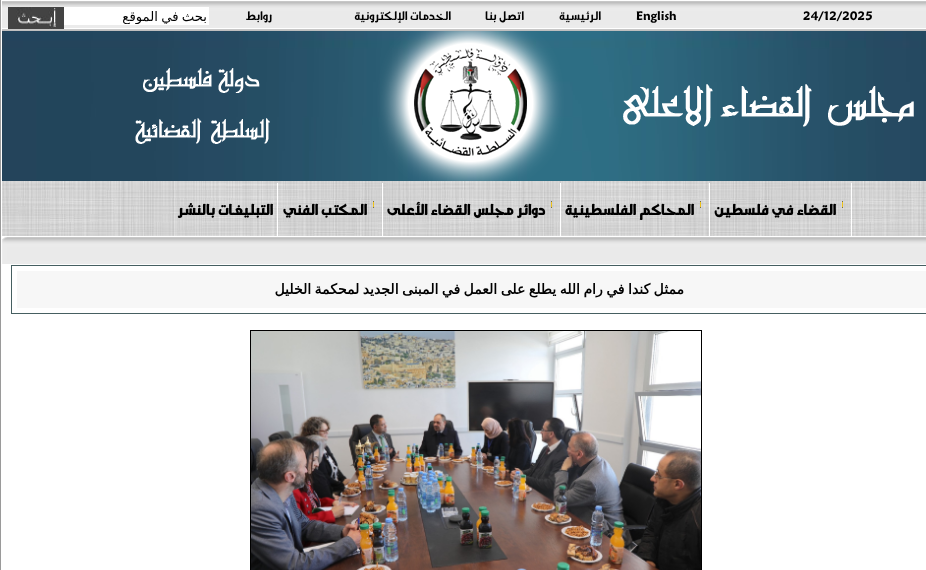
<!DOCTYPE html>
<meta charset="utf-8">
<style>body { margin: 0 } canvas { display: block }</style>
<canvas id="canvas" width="926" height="570"></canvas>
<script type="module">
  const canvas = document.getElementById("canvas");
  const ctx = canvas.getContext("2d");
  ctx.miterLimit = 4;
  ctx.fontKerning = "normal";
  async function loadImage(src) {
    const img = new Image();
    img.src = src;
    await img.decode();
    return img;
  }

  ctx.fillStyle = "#ffffff";
  ctx.fillRect(0, 0, 926, 570);
  ctx.drawImage(await loadImage("img1.png"), 2, 1, 924, 30);
  ctx.font = "13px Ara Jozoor";
  ctx.fillStyle = "#000000";
  ctx.fillText("24/12/2025", 803, 20);
  ctx.fillText("English", 636, 20);
  ctx.direction = "rtl";
  ctx.fillText("الرئيسية", 601, 20);
  ctx.fillText("اتصل بنا", 524, 20);
  ctx.fillText("الخدمات الإلكترونية", 451, 20);
  ctx.fillText("روابط", 272, 20);
  ctx.fillStyle = "#ffffff";
  ctx.fillRect(64, 7, 145, 18);
  ctx.save();
  ctx.beginPath();
  ctx.rect(61, 9, 146, 15);
  ctx.clip();
  ctx.wordSpacing = "-1px";
  ctx.font = "13.25px DejaVu Sans";
  ctx.fillStyle = "#000000";
  ctx.fillText("بحث في الموقع", 207, 21);
  ctx.restore();
  ctx.drawImage(await loadImage("img2.png"), 8, 7, 56, 22);
  ctx.drawImage(await loadImage("img3.png"), 2, 31, 924, 150);
  ctx.drawImage(await loadImage("img4.png"), 2, 181, 924, 1);
  ctx.drawImage(await loadImage("img5.png"), 2, 182, 924, 54);
  ctx.fillRect(851, 183, 1, 53);
  ctx.drawImage(await loadImage("img6.png"), 842, 201, 1, 7);
  ctx.font = "bold 16px Ara Jozoor";
  ctx.fillStyle = "#000000";
  ctx.fillText("القضاء في فلسطين", 836, 215);
  ctx.fillStyle = "#ffffff";
  ctx.fillRect(709, 183, 1, 53);
  ctx.drawImage(await loadImage("img6.png"), 700, 201, 1, 7);
  ctx.fillStyle = "#000000";
  ctx.fillText("المحاكم الفلسطينية", 694, 215);
  ctx.fillStyle = "#ffffff";
  ctx.fillRect(560, 183, 1, 53);
  ctx.drawImage(await loadImage("img6.png"), 551, 201, 1, 7);
  ctx.fillStyle = "#000000";
  ctx.fillText("دوائر مجلس القضاء الأعلى", 545, 215);
  ctx.fillStyle = "#ffffff";
  ctx.fillRect(382, 183, 1, 53);
  ctx.drawImage(await loadImage("img6.png"), 373, 201, 1, 7);
  ctx.fillStyle = "#000000";
  ctx.fillText("المكتب", 367, 215);
  ctx.fillText("الفني", 318, 215);
  ctx.fillStyle = "#ffffff";
  ctx.fillRect(277, 183, 1, 53);
  ctx.fillStyle = "#000000";
  ctx.fillText("التبليغات بالنشر", 273, 215);
  ctx.drawImage(await loadImage("img7.png"), 7, 237, 919, 27);
  ctx.drawImage(await loadImage("img8.png"), 2, 237, 5, 27);
  ctx.strokeStyle = "#465f61";
  ctx.strokeRect(11.5, 265.5, 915, 48);
  ctx.fillStyle = "#f7f7f7";
  ctx.fillRect(17, 271, 909, 37);
  ctx.wordSpacing = "-1px";
  ctx.font = "bold 14px DejaVu Sans";
  ctx.fillStyle = "#000000";
  ctx.fillText("ممثل كندا في رام الله يطلع على العمل في المبنى الجديد لمحكمة الخليل", 684, 294);
  ctx.strokeStyle = "#000000";
  ctx.strokeRect(250.5, 330.5, 451, 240);
  ctx.drawImage(await loadImage("img9.png"), 251, 331, 450, 239);
  ctx.fillStyle = "#9a9a9a";
  ctx.fillRect(0, 0, 1, 570);
</script>
